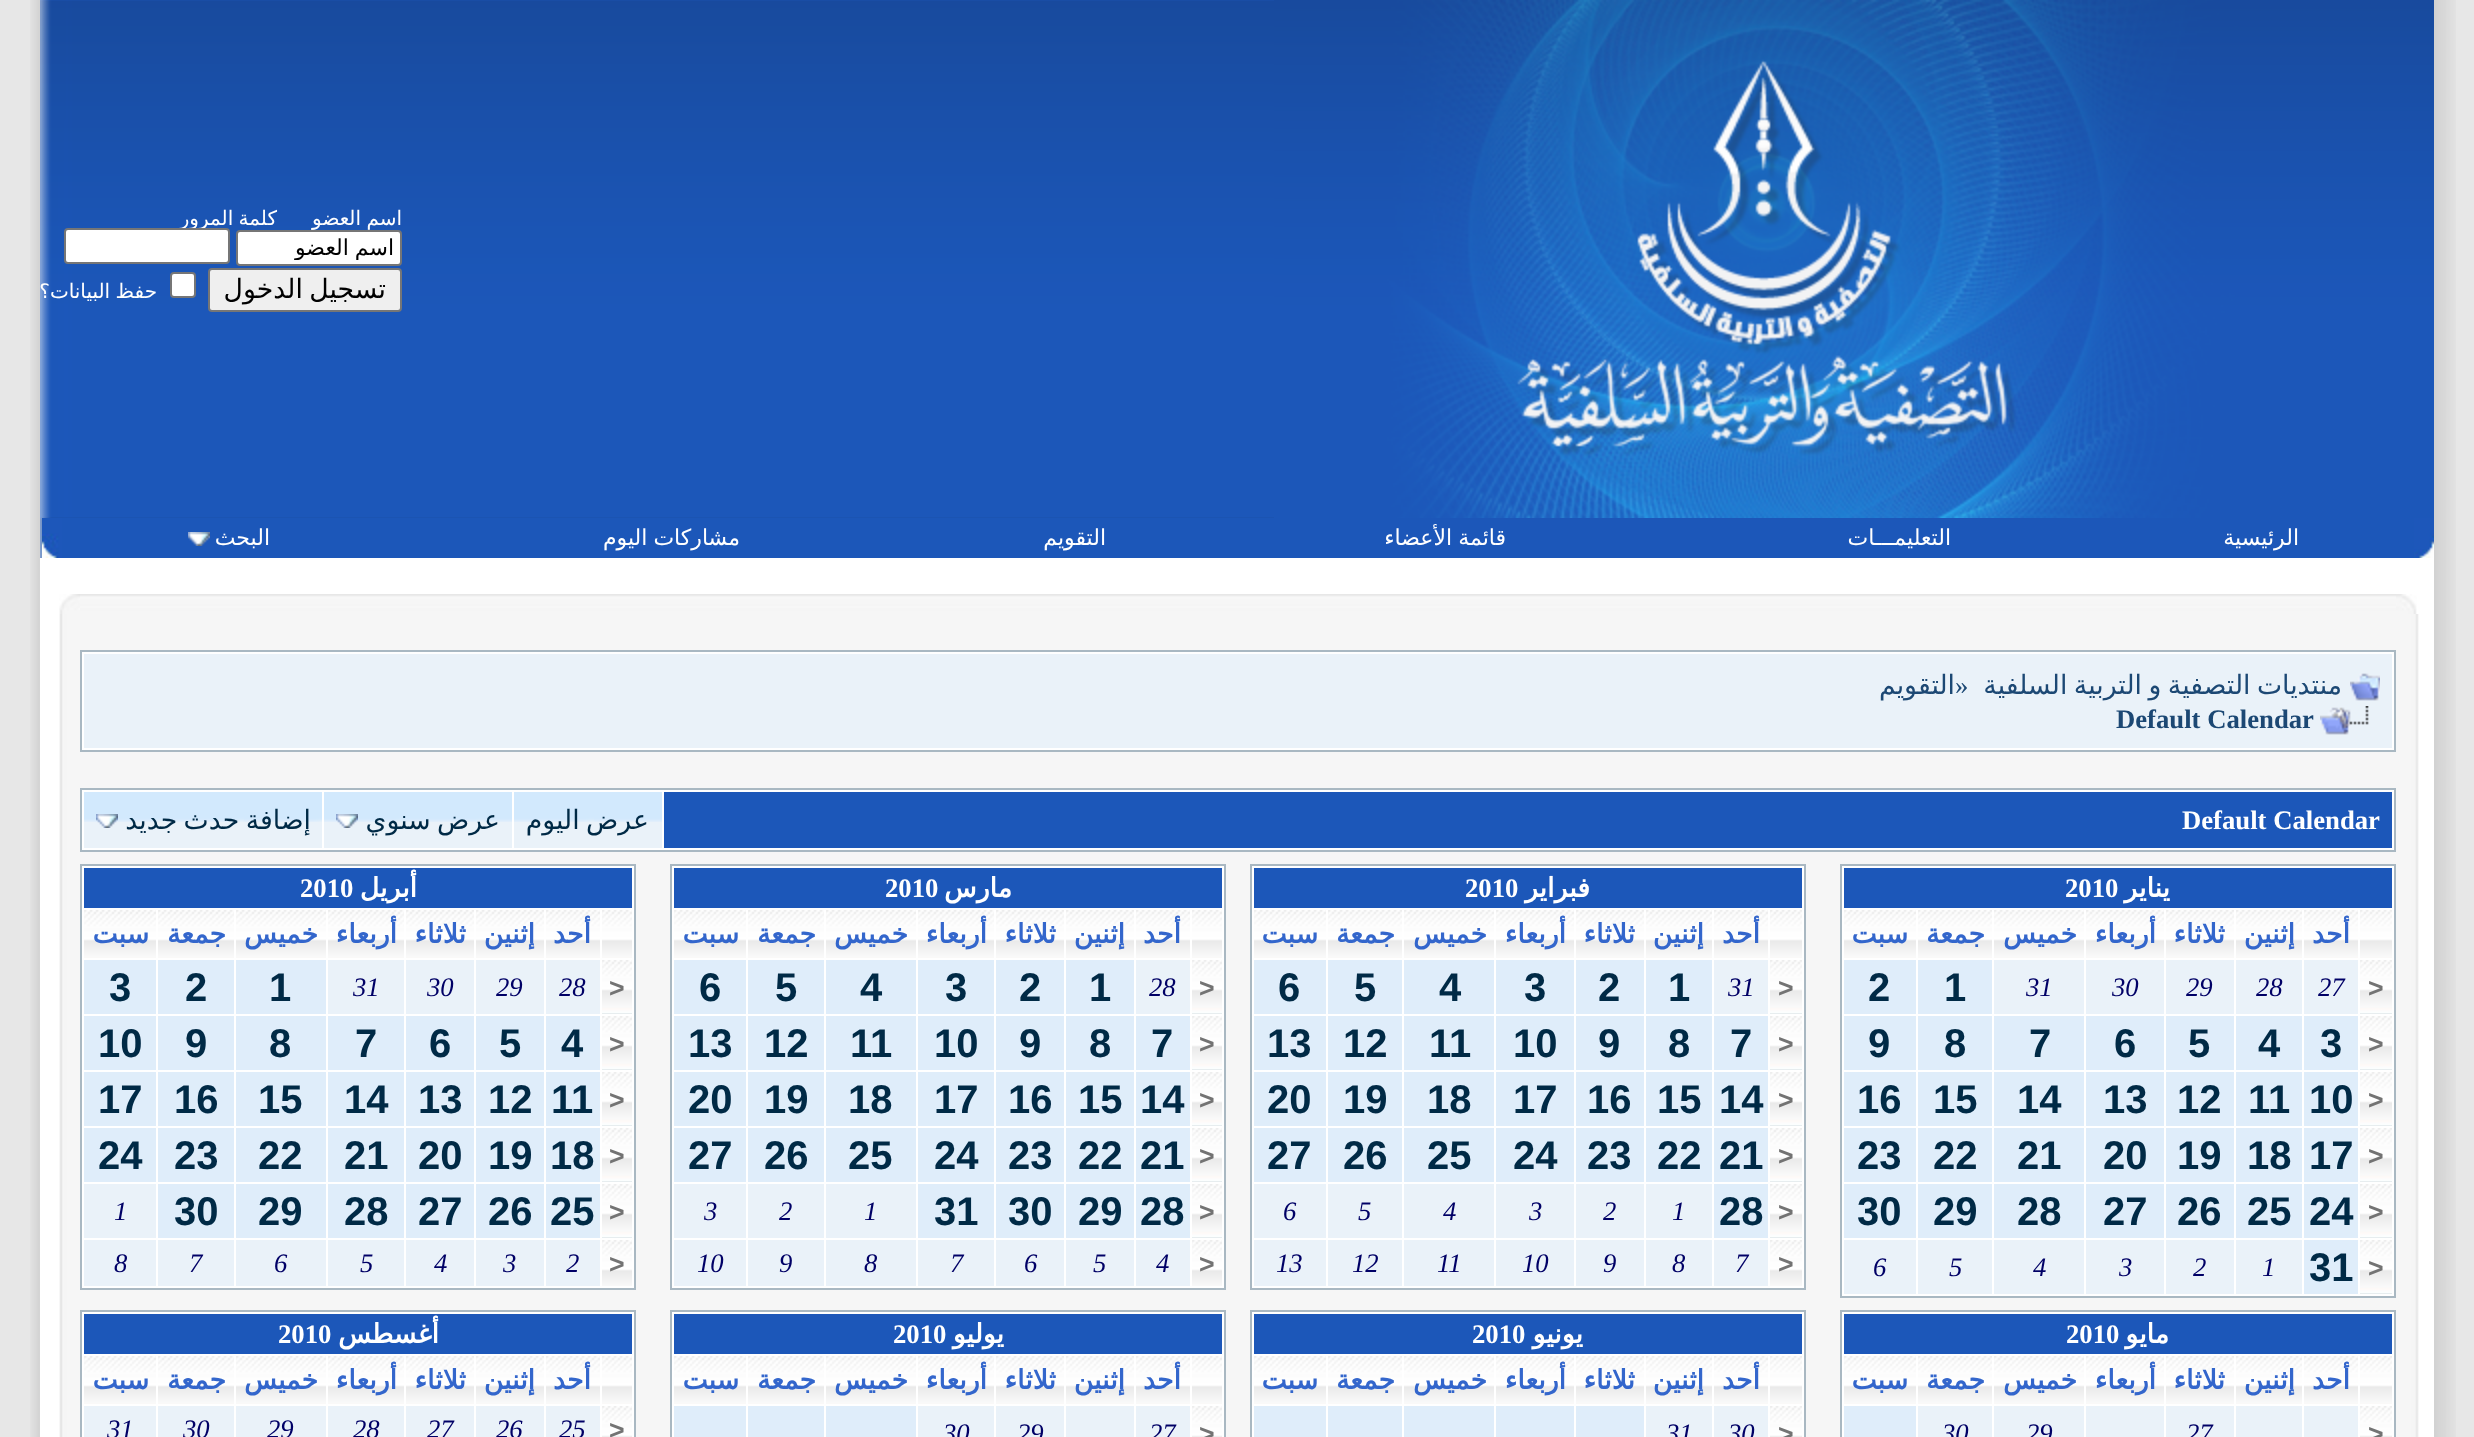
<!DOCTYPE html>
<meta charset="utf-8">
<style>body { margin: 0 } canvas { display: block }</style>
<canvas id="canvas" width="2474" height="1437"></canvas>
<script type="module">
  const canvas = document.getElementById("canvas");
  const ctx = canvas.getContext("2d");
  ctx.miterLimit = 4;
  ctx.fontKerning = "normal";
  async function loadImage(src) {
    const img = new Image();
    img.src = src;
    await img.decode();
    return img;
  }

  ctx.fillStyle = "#e7e7e7";
  ctx.fillRect(0, 0, 2474, 1437);
  ctx.drawImage(await loadImage("img1.png"), 2434, 0, 22, 1437);
  ctx.fillStyle = "#ffffff";
  ctx.fillRect(40, 0, 2394, 1437);
  ctx.drawImage(await loadImage("img2.png"), 40, 0, 1234, 558);
  ctx.drawImage(await loadImage("img3.png"), 1274, 0, 1160, 518);
  ctx.wordSpacing = "-1px";
  ctx.direction = "rtl";
  ctx.font = "20px DejaVu Sans";
  ctx.fillText("اسم العضو", 402, 225);
  ctx.fillText("كلمة المرور", 277, 225);
  ctx.beginPath();
  ctx.roundRect(237, 231, 164, 34, 3);
  ctx.fill();
  ctx.strokeStyle = "#767676";
  ctx.lineWidth = 2;
  ctx.stroke();
  ctx.save();
  ctx.beginPath();
  ctx.rect(244, 234, 150, 26);
  ctx.clip();
  ctx.font = "22px DejaVu Sans";
  ctx.fillStyle = "#000000";
  ctx.fillText("اسم العضو", 394, 255);
  ctx.restore();
  ctx.beginPath();
  ctx.roundRect(65, 229, 164, 34, 3);
  ctx.fill();
  ctx.stroke();
  ctx.fillStyle = "#efefef";
  ctx.beginPath();
  ctx.roundRect(209, 269, 192, 42, 3);
  ctx.fill();
  ctx.stroke();
  ctx.wordSpacing = "-2px";
  ctx.font = "26.7px DejaVu Sans";
  ctx.fillStyle = "#000000";
  ctx.fillText("تسجيل الدخول", 386, 298);
  ctx.fillStyle = "#ffffff";
  ctx.beginPath();
  ctx.roundRect(171, 273, 24, 24, 3);
  ctx.fill();
  ctx.stroke();
  ctx.wordSpacing = "-1px";
  ctx.font = "20px DejaVu Sans";
  ctx.fillText("حفظ البيانات؟", 157, 298);
  ctx.drawImage(await loadImage("img4.png"), 2414, 518, 20, 40);
  ctx.fillStyle = "#1c57b9";
  ctx.fillRect(62, 518, 2352, 40);
  ctx.wordSpacing = "0px";
  ctx.font = "22px DejaVu Sans";
  ctx.fillStyle = "#ffffff";
  ctx.fillText("الرئيسية", 2299, 545);
  ctx.fillText("التعليمـــات", 1951, 545);
  ctx.wordSpacing = "-1px";
  ctx.fillText("قائمة الأعضاء", 1506, 545);
  ctx.wordSpacing = "0px";
  ctx.fillText("التقويم", 1106, 545);
  ctx.wordSpacing = "-1px";
  ctx.fillText("مشاركات اليوم", 740, 545);
  ctx.wordSpacing = "0px";
  ctx.fillText("البحث", 270, 545);
  ctx.drawImage(await loadImage("img5.png"), 188, 532, 22, 14);
  ctx.drawImage(await loadImage("img6.png"), 42, 518, 20, 40);
  ctx.drawImage(await loadImage("img7.png"), 2396, 594, 21, 20);
  ctx.drawImage(await loadImage("img8.png"), 80, 594, 2316, 20);
  ctx.drawImage(await loadImage("img9.png"), 59, 594, 21, 20);
  ctx.drawImage(await loadImage("img10.png"), 2396, 614, 23, 823);
  ctx.fillStyle = "#f6f6f6";
  ctx.fillRect(80, 614, 2316, 823);
  ctx.fillStyle = "#ffffff";
  ctx.beginPath();
  ctx.rect(81, 651, 2314, 100);
  ctx.fill();
  ctx.strokeStyle = "#a9b8c2";
  ctx.stroke();
  ctx.fillStyle = "#eaf2f9";
  ctx.fillRect(84, 654, 2308, 94);
  ctx.drawImage(await loadImage("img11.png"), 2350, 673, 30, 28);
  ctx.wordSpacing = "-2px";
  ctx.font = "26.7px DejaVu Sans";
  ctx.fillStyle = "#1c4874";
  ctx.fillText("منتديات التصفية و التربية السلفية", 2342, 694);
  ctx.wordSpacing = "0px";
  ctx.direction = "ltr";
  ctx.font = "26.7px Liberation Serif";
  ctx.fillText("»", 1955, 694);
  ctx.direction = "rtl";
  ctx.font = "26.7px DejaVu Sans";
  ctx.fillText("التقويم", 1955, 694);
  ctx.drawImage(await loadImage("img12.png"), 2320, 706, 49, 29);
  ctx.direction = "ltr";
  ctx.font = "bold 26.7px Liberation Serif";
  ctx.fillText("Default Calendar", 2116, 728);
  ctx.fillStyle = "#ffffff";
  ctx.beginPath();
  ctx.rect(81, 789, 2314, 62);
  ctx.fill();
  ctx.stroke();
  ctx.fillStyle = "#1c57b9";
  ctx.fillRect(664, 792, 1728, 56);
  ctx.fillStyle = "#ffffff";
  ctx.fillText("Default Calendar", 2182, 829);
  ctx.fillStyle = "#eaf2f9";
  ctx.fillRect(514, 822, 148, 26);
  ctx.drawImage(await loadImage("img13.png"), 514, 792, 148, 30);
  ctx.wordSpacing = "-2px";
  ctx.direction = "rtl";
  ctx.font = "26.7px DejaVu Sans";
  ctx.fillStyle = "#002a46";
  ctx.fillText("عرض اليوم", 649, 829);
  ctx.fillStyle = "#eaf2f9";
  ctx.fillRect(324, 822, 188, 26);
  ctx.drawImage(await loadImage("img14.png"), 324, 792, 188, 30);
  ctx.fillStyle = "#002a46";
  ctx.fillText("عرض سنوي", 500, 829);
  ctx.drawImage(await loadImage("img15.png"), 336, 814, 22, 14);
  ctx.fillStyle = "#eaf2f9";
  ctx.fillRect(84, 822, 238, 26);
  ctx.drawImage(await loadImage("img16.png"), 84, 792, 238, 30);
  ctx.fillStyle = "#002a46";
  ctx.fillText("إضافة حدث جديد", 311, 829);
  ctx.drawImage(await loadImage("img15.png"), 96, 814, 22, 14);
  ctx.fillStyle = "#ffffff";
  ctx.beginPath();
  ctx.rect(1841, 865, 554, 432);
  ctx.fill();
  ctx.stroke();
  ctx.fillStyle = "#1c57b9";
  ctx.fillRect(1844, 868, 548, 40);
  ctx.wordSpacing = "0px";
  ctx.font = "bold 26.7px DejaVu Sans";
  ctx.fillStyle = "#ffffff";
  ctx.fillText("يناير", 2170, 897);
  ctx.direction = "ltr";
  ctx.font = "bold 26.7px Liberation Serif";
  ctx.fillText("2010", 2065, 897);
  ctx.drawImage(await loadImage("img17.png"), 2360, 910, 32, 48);
  ctx.drawImage(await loadImage("img18.png"), 2304, 910, 54, 48);
  ctx.direction = "rtl";
  ctx.font = "bold 26.7px DejaVu Sans";
  ctx.fillStyle = "#3366cc";
  ctx.fillText("أحد", 2350, 943);
  ctx.drawImage(await loadImage("img19.png"), 2236, 910, 66, 48);
  ctx.fillText("إثنين", 2295, 943);
  ctx.drawImage(await loadImage("img20.png"), 2166, 910, 68, 48);
  ctx.fillText("ثلاثاء", 2225, 943);
  ctx.drawImage(await loadImage("img21.png"), 2086, 910, 78, 48);
  ctx.fillText("أربعاء", 2156, 943);
  ctx.drawImage(await loadImage("img22.png"), 1994, 910, 90, 48);
  ctx.fillText("خميس", 2077, 943);
  ctx.drawImage(await loadImage("img23.png"), 1918, 910, 74, 48);
  ctx.fillText("جمعة", 1985, 943);
  ctx.drawImage(await loadImage("img24.png"), 1844, 910, 72, 48);
  ctx.fillText("سبت", 1908, 943);
  ctx.drawImage(await loadImage("img25.png"), 2360, 960, 32, 54);
  ctx.direction = "ltr";
  ctx.font = "bold 26.7px Liberation Sans";
  ctx.fillStyle = "#737373";
  ctx.fillText(">", 2368, 997);
  ctx.fillStyle = "#eaf2f9";
  ctx.fillRect(2304, 960, 54, 54);
  ctx.font = "italic 26.7px Liberation Serif";
  ctx.fillStyle = "#000066";
  ctx.fillText("27", 2318, 996);
  ctx.fillStyle = "#eaf2f9";
  ctx.fillRect(2236, 960, 66, 54);
  ctx.fillStyle = "#000066";
  ctx.fillText("28", 2256, 996);
  ctx.fillStyle = "#eaf2f9";
  ctx.fillRect(2166, 960, 68, 54);
  ctx.fillStyle = "#000066";
  ctx.fillText("29", 2186, 996);
  ctx.fillStyle = "#eaf2f9";
  ctx.fillRect(2086, 960, 78, 54);
  ctx.fillStyle = "#000066";
  ctx.fillText("30", 2112, 996);
  ctx.fillStyle = "#eaf2f9";
  ctx.fillRect(1994, 960, 90, 54);
  ctx.fillStyle = "#000066";
  ctx.fillText("31", 2026, 996);
  ctx.fillStyle = "#dfedfa";
  ctx.fillRect(1918, 960, 74, 54);
  ctx.font = "bold 40px Liberation Sans";
  ctx.fillStyle = "#002a46";
  ctx.fillText("1", 1944, 1001);
  ctx.fillStyle = "#dfedfa";
  ctx.fillRect(1844, 960, 72, 54);
  ctx.fillStyle = "#002a46";
  ctx.fillText("2", 1868, 1001);
  ctx.drawImage(await loadImage("img25.png"), 2360, 1016, 32, 54);
  ctx.font = "bold 26.7px Liberation Sans";
  ctx.fillStyle = "#737373";
  ctx.fillText(">", 2368, 1053);
  ctx.fillStyle = "#dfedfa";
  ctx.fillRect(2304, 1016, 54, 54);
  ctx.font = "bold 40px Liberation Sans";
  ctx.fillStyle = "#002a46";
  ctx.fillText("3", 2320, 1057);
  ctx.fillStyle = "#dfedfa";
  ctx.fillRect(2236, 1016, 66, 54);
  ctx.fillStyle = "#002a46";
  ctx.fillText("4", 2258, 1057);
  ctx.fillStyle = "#dfedfa";
  ctx.fillRect(2166, 1016, 68, 54);
  ctx.fillStyle = "#002a46";
  ctx.fillText("5", 2188, 1057);
  ctx.fillStyle = "#dfedfa";
  ctx.fillRect(2086, 1016, 78, 54);
  ctx.fillStyle = "#002a46";
  ctx.fillText("6", 2114, 1057);
  ctx.fillStyle = "#dfedfa";
  ctx.fillRect(1994, 1016, 90, 54);
  ctx.fillStyle = "#002a46";
  ctx.fillText("7", 2029, 1057);
  ctx.fillStyle = "#dfedfa";
  ctx.fillRect(1918, 1016, 74, 54);
  ctx.fillStyle = "#002a46";
  ctx.fillText("8", 1944, 1057);
  ctx.fillStyle = "#dfedfa";
  ctx.fillRect(1844, 1016, 72, 54);
  ctx.fillStyle = "#002a46";
  ctx.fillText("9", 1868, 1057);
  ctx.drawImage(await loadImage("img25.png"), 2360, 1072, 32, 54);
  ctx.font = "bold 26.7px Liberation Sans";
  ctx.fillStyle = "#737373";
  ctx.fillText(">", 2368, 1109);
  ctx.fillStyle = "#dfedfa";
  ctx.fillRect(2304, 1072, 54, 54);
  ctx.font = "bold 40px Liberation Sans";
  ctx.fillStyle = "#002a46";
  ctx.fillText("10", 2309, 1113);
  ctx.fillStyle = "#dfedfa";
  ctx.fillRect(2236, 1072, 66, 54);
  ctx.fillStyle = "#002a46";
  ctx.fillText("11", 2248, 1113);
  ctx.fillStyle = "#dfedfa";
  ctx.fillRect(2166, 1072, 68, 54);
  ctx.fillStyle = "#002a46";
  ctx.fillText("12", 2177, 1113);
  ctx.fillStyle = "#dfedfa";
  ctx.fillRect(2086, 1072, 78, 54);
  ctx.fillStyle = "#002a46";
  ctx.fillText("13", 2103, 1113);
  ctx.fillStyle = "#dfedfa";
  ctx.fillRect(1994, 1072, 90, 54);
  ctx.fillStyle = "#002a46";
  ctx.fillText("14", 2017, 1113);
  ctx.fillStyle = "#dfedfa";
  ctx.fillRect(1918, 1072, 74, 54);
  ctx.fillStyle = "#002a46";
  ctx.fillText("15", 1933, 1113);
  ctx.fillStyle = "#dfedfa";
  ctx.fillRect(1844, 1072, 72, 54);
  ctx.fillStyle = "#002a46";
  ctx.fillText("16", 1857, 1113);
  ctx.drawImage(await loadImage("img25.png"), 2360, 1128, 32, 54);
  ctx.font = "bold 26.7px Liberation Sans";
  ctx.fillStyle = "#737373";
  ctx.fillText(">", 2368, 1165);
  ctx.fillStyle = "#dfedfa";
  ctx.fillRect(2304, 1128, 54, 54);
  ctx.font = "bold 40px Liberation Sans";
  ctx.fillStyle = "#002a46";
  ctx.fillText("17", 2309, 1169);
  ctx.fillStyle = "#dfedfa";
  ctx.fillRect(2236, 1128, 66, 54);
  ctx.fillStyle = "#002a46";
  ctx.fillText("18", 2247, 1169);
  ctx.fillStyle = "#dfedfa";
  ctx.fillRect(2166, 1128, 68, 54);
  ctx.fillStyle = "#002a46";
  ctx.fillText("19", 2177, 1169);
  ctx.fillStyle = "#dfedfa";
  ctx.fillRect(2086, 1128, 78, 54);
  ctx.fillStyle = "#002a46";
  ctx.fillText("20", 2103, 1169);
  ctx.fillStyle = "#dfedfa";
  ctx.fillRect(1994, 1128, 90, 54);
  ctx.fillStyle = "#002a46";
  ctx.fillText("21", 2017, 1169);
  ctx.fillStyle = "#dfedfa";
  ctx.fillRect(1918, 1128, 74, 54);
  ctx.fillStyle = "#002a46";
  ctx.fillText("22", 1933, 1169);
  ctx.fillStyle = "#dfedfa";
  ctx.fillRect(1844, 1128, 72, 54);
  ctx.fillStyle = "#002a46";
  ctx.fillText("23", 1857, 1169);
  ctx.drawImage(await loadImage("img25.png"), 2360, 1184, 32, 54);
  ctx.font = "bold 26.7px Liberation Sans";
  ctx.fillStyle = "#737373";
  ctx.fillText(">", 2368, 1221);
  ctx.fillStyle = "#dfedfa";
  ctx.fillRect(2304, 1184, 54, 54);
  ctx.font = "bold 40px Liberation Sans";
  ctx.fillStyle = "#002a46";
  ctx.fillText("24", 2309, 1225);
  ctx.fillStyle = "#dfedfa";
  ctx.fillRect(2236, 1184, 66, 54);
  ctx.fillStyle = "#002a46";
  ctx.fillText("25", 2247, 1225);
  ctx.fillStyle = "#dfedfa";
  ctx.fillRect(2166, 1184, 68, 54);
  ctx.fillStyle = "#002a46";
  ctx.fillText("26", 2177, 1225);
  ctx.fillStyle = "#dfedfa";
  ctx.fillRect(2086, 1184, 78, 54);
  ctx.fillStyle = "#002a46";
  ctx.fillText("27", 2103, 1225);
  ctx.fillStyle = "#dfedfa";
  ctx.fillRect(1994, 1184, 90, 54);
  ctx.fillStyle = "#002a46";
  ctx.fillText("28", 2017, 1225);
  ctx.fillStyle = "#dfedfa";
  ctx.fillRect(1918, 1184, 74, 54);
  ctx.fillStyle = "#002a46";
  ctx.fillText("29", 1933, 1225);
  ctx.fillStyle = "#dfedfa";
  ctx.fillRect(1844, 1184, 72, 54);
  ctx.fillStyle = "#002a46";
  ctx.fillText("30", 1857, 1225);
  ctx.drawImage(await loadImage("img25.png"), 2360, 1240, 32, 54);
  ctx.font = "bold 26.7px Liberation Sans";
  ctx.fillStyle = "#737373";
  ctx.fillText(">", 2368, 1277);
  ctx.fillStyle = "#dfedfa";
  ctx.fillRect(2304, 1240, 54, 54);
  ctx.font = "bold 40px Liberation Sans";
  ctx.fillStyle = "#002a46";
  ctx.fillText("31", 2309, 1281);
  ctx.fillStyle = "#eaf2f9";
  ctx.fillRect(2236, 1240, 66, 54);
  ctx.font = "italic 26.7px Liberation Serif";
  ctx.fillStyle = "#000066";
  ctx.fillText("1", 2262, 1276);
  ctx.fillStyle = "#eaf2f9";
  ctx.fillRect(2166, 1240, 68, 54);
  ctx.fillStyle = "#000066";
  ctx.fillText("2", 2193, 1276);
  ctx.fillStyle = "#eaf2f9";
  ctx.fillRect(2086, 1240, 78, 54);
  ctx.fillStyle = "#000066";
  ctx.fillText("3", 2119, 1276);
  ctx.fillStyle = "#eaf2f9";
  ctx.fillRect(1994, 1240, 90, 54);
  ctx.fillStyle = "#000066";
  ctx.fillText("4", 2033, 1276);
  ctx.fillStyle = "#eaf2f9";
  ctx.fillRect(1918, 1240, 74, 54);
  ctx.fillStyle = "#000066";
  ctx.fillText("5", 1949, 1276);
  ctx.fillStyle = "#eaf2f9";
  ctx.fillRect(1844, 1240, 72, 54);
  ctx.fillStyle = "#000066";
  ctx.fillText("6", 1873, 1276);
  ctx.fillStyle = "#ffffff";
  ctx.beginPath();
  ctx.rect(1251, 865, 554, 424);
  ctx.fill();
  ctx.stroke();
  ctx.fillStyle = "#1c57b9";
  ctx.fillRect(1254, 868, 548, 40);
  ctx.direction = "rtl";
  ctx.font = "bold 26.7px DejaVu Sans";
  ctx.fillStyle = "#ffffff";
  ctx.fillText("فبراير", 1590, 897);
  ctx.direction = "ltr";
  ctx.font = "bold 26.7px Liberation Serif";
  ctx.fillText("2010", 1465, 897);
  ctx.drawImage(await loadImage("img17.png"), 1770, 910, 32, 48);
  ctx.drawImage(await loadImage("img18.png"), 1714, 910, 54, 48);
  ctx.direction = "rtl";
  ctx.font = "bold 26.7px DejaVu Sans";
  ctx.fillStyle = "#3366cc";
  ctx.fillText("أحد", 1760, 943);
  ctx.drawImage(await loadImage("img19.png"), 1646, 910, 66, 48);
  ctx.fillText("إثنين", 1704, 943);
  ctx.drawImage(await loadImage("img20.png"), 1576, 910, 68, 48);
  ctx.fillText("ثلاثاء", 1635, 943);
  ctx.drawImage(await loadImage("img21.png"), 1496, 910, 78, 48);
  ctx.fillText("أربعاء", 1566, 943);
  ctx.drawImage(await loadImage("img22.png"), 1404, 910, 90, 48);
  ctx.fillText("خميس", 1487, 943);
  ctx.drawImage(await loadImage("img23.png"), 1328, 910, 74, 48);
  ctx.fillText("جمعة", 1395, 943);
  ctx.drawImage(await loadImage("img24.png"), 1254, 910, 72, 48);
  ctx.fillText("سبت", 1318, 943);
  ctx.drawImage(await loadImage("img25.png"), 1770, 960, 32, 54);
  ctx.direction = "ltr";
  ctx.font = "bold 26.7px Liberation Sans";
  ctx.fillStyle = "#737373";
  ctx.fillText(">", 1778, 997);
  ctx.fillStyle = "#eaf2f9";
  ctx.fillRect(1714, 960, 54, 54);
  ctx.font = "italic 26.7px Liberation Serif";
  ctx.fillStyle = "#000066";
  ctx.fillText("31", 1728, 996);
  ctx.fillStyle = "#dfedfa";
  ctx.fillRect(1646, 960, 66, 54);
  ctx.font = "bold 40px Liberation Sans";
  ctx.fillStyle = "#002a46";
  ctx.fillText("1", 1668, 1001);
  ctx.fillStyle = "#dfedfa";
  ctx.fillRect(1576, 960, 68, 54);
  ctx.fillStyle = "#002a46";
  ctx.fillText("2", 1598, 1001);
  ctx.fillStyle = "#dfedfa";
  ctx.fillRect(1496, 960, 78, 54);
  ctx.fillStyle = "#002a46";
  ctx.fillText("3", 1524, 1001);
  ctx.fillStyle = "#dfedfa";
  ctx.fillRect(1404, 960, 90, 54);
  ctx.fillStyle = "#002a46";
  ctx.fillText("4", 1439, 1001);
  ctx.fillStyle = "#dfedfa";
  ctx.fillRect(1328, 960, 74, 54);
  ctx.fillStyle = "#002a46";
  ctx.fillText("5", 1354, 1001);
  ctx.fillStyle = "#dfedfa";
  ctx.fillRect(1254, 960, 72, 54);
  ctx.fillStyle = "#002a46";
  ctx.fillText("6", 1278, 1001);
  ctx.drawImage(await loadImage("img25.png"), 1770, 1016, 32, 54);
  ctx.font = "bold 26.7px Liberation Sans";
  ctx.fillStyle = "#737373";
  ctx.fillText(">", 1778, 1053);
  ctx.fillStyle = "#dfedfa";
  ctx.fillRect(1714, 1016, 54, 54);
  ctx.font = "bold 40px Liberation Sans";
  ctx.fillStyle = "#002a46";
  ctx.fillText("7", 1730, 1057);
  ctx.fillStyle = "#dfedfa";
  ctx.fillRect(1646, 1016, 66, 54);
  ctx.fillStyle = "#002a46";
  ctx.fillText("8", 1668, 1057);
  ctx.fillStyle = "#dfedfa";
  ctx.fillRect(1576, 1016, 68, 54);
  ctx.fillStyle = "#002a46";
  ctx.fillText("9", 1598, 1057);
  ctx.fillStyle = "#dfedfa";
  ctx.fillRect(1496, 1016, 78, 54);
  ctx.fillStyle = "#002a46";
  ctx.fillText("10", 1513, 1057);
  ctx.fillStyle = "#dfedfa";
  ctx.fillRect(1404, 1016, 90, 54);
  ctx.fillStyle = "#002a46";
  ctx.fillText("11", 1429, 1057);
  ctx.fillStyle = "#dfedfa";
  ctx.fillRect(1328, 1016, 74, 54);
  ctx.fillStyle = "#002a46";
  ctx.fillText("12", 1343, 1057);
  ctx.fillStyle = "#dfedfa";
  ctx.fillRect(1254, 1016, 72, 54);
  ctx.fillStyle = "#002a46";
  ctx.fillText("13", 1267, 1057);
  ctx.drawImage(await loadImage("img25.png"), 1770, 1072, 32, 54);
  ctx.font = "bold 26.7px Liberation Sans";
  ctx.fillStyle = "#737373";
  ctx.fillText(">", 1778, 1109);
  ctx.fillStyle = "#dfedfa";
  ctx.fillRect(1714, 1072, 54, 54);
  ctx.font = "bold 40px Liberation Sans";
  ctx.fillStyle = "#002a46";
  ctx.fillText("14", 1719, 1113);
  ctx.fillStyle = "#dfedfa";
  ctx.fillRect(1646, 1072, 66, 54);
  ctx.fillStyle = "#002a46";
  ctx.fillText("15", 1657, 1113);
  ctx.fillStyle = "#dfedfa";
  ctx.fillRect(1576, 1072, 68, 54);
  ctx.fillStyle = "#002a46";
  ctx.fillText("16", 1587, 1113);
  ctx.fillStyle = "#dfedfa";
  ctx.fillRect(1496, 1072, 78, 54);
  ctx.fillStyle = "#002a46";
  ctx.fillText("17", 1513, 1113);
  ctx.fillStyle = "#dfedfa";
  ctx.fillRect(1404, 1072, 90, 54);
  ctx.fillStyle = "#002a46";
  ctx.fillText("18", 1427, 1113);
  ctx.fillStyle = "#dfedfa";
  ctx.fillRect(1328, 1072, 74, 54);
  ctx.fillStyle = "#002a46";
  ctx.fillText("19", 1343, 1113);
  ctx.fillStyle = "#dfedfa";
  ctx.fillRect(1254, 1072, 72, 54);
  ctx.fillStyle = "#002a46";
  ctx.fillText("20", 1267, 1113);
  ctx.drawImage(await loadImage("img25.png"), 1770, 1128, 32, 54);
  ctx.font = "bold 26.7px Liberation Sans";
  ctx.fillStyle = "#737373";
  ctx.fillText(">", 1778, 1165);
  ctx.fillStyle = "#dfedfa";
  ctx.fillRect(1714, 1128, 54, 54);
  ctx.font = "bold 40px Liberation Sans";
  ctx.fillStyle = "#002a46";
  ctx.fillText("21", 1719, 1169);
  ctx.fillStyle = "#dfedfa";
  ctx.fillRect(1646, 1128, 66, 54);
  ctx.fillStyle = "#002a46";
  ctx.fillText("22", 1657, 1169);
  ctx.fillStyle = "#dfedfa";
  ctx.fillRect(1576, 1128, 68, 54);
  ctx.fillStyle = "#002a46";
  ctx.fillText("23", 1587, 1169);
  ctx.fillStyle = "#dfedfa";
  ctx.fillRect(1496, 1128, 78, 54);
  ctx.fillStyle = "#002a46";
  ctx.fillText("24", 1513, 1169);
  ctx.fillStyle = "#dfedfa";
  ctx.fillRect(1404, 1128, 90, 54);
  ctx.fillStyle = "#002a46";
  ctx.fillText("25", 1427, 1169);
  ctx.fillStyle = "#dfedfa";
  ctx.fillRect(1328, 1128, 74, 54);
  ctx.fillStyle = "#002a46";
  ctx.fillText("26", 1343, 1169);
  ctx.fillStyle = "#dfedfa";
  ctx.fillRect(1254, 1128, 72, 54);
  ctx.fillStyle = "#002a46";
  ctx.fillText("27", 1267, 1169);
  ctx.drawImage(await loadImage("img25.png"), 1770, 1184, 32, 54);
  ctx.font = "bold 26.7px Liberation Sans";
  ctx.fillStyle = "#737373";
  ctx.fillText(">", 1778, 1221);
  ctx.fillStyle = "#dfedfa";
  ctx.fillRect(1714, 1184, 54, 54);
  ctx.font = "bold 40px Liberation Sans";
  ctx.fillStyle = "#002a46";
  ctx.fillText("28", 1719, 1225);
  ctx.fillStyle = "#eaf2f9";
  ctx.fillRect(1646, 1184, 66, 54);
  ctx.font = "italic 26.7px Liberation Serif";
  ctx.fillStyle = "#000066";
  ctx.fillText("1", 1672, 1220);
  ctx.fillStyle = "#eaf2f9";
  ctx.fillRect(1576, 1184, 68, 54);
  ctx.fillStyle = "#000066";
  ctx.fillText("2", 1603, 1220);
  ctx.fillStyle = "#eaf2f9";
  ctx.fillRect(1496, 1184, 78, 54);
  ctx.fillStyle = "#000066";
  ctx.fillText("3", 1529, 1220);
  ctx.fillStyle = "#eaf2f9";
  ctx.fillRect(1404, 1184, 90, 54);
  ctx.fillStyle = "#000066";
  ctx.fillText("4", 1443, 1220);
  ctx.fillStyle = "#eaf2f9";
  ctx.fillRect(1328, 1184, 74, 54);
  ctx.fillStyle = "#000066";
  ctx.fillText("5", 1358, 1220);
  ctx.fillStyle = "#eaf2f9";
  ctx.fillRect(1254, 1184, 72, 54);
  ctx.fillStyle = "#000066";
  ctx.fillText("6", 1283, 1220);
  ctx.drawImage(await loadImage("img26.png"), 1770, 1240, 32, 46);
  ctx.font = "bold 26.7px Liberation Sans";
  ctx.fillStyle = "#737373";
  ctx.fillText(">", 1778, 1273);
  ctx.fillStyle = "#eaf2f9";
  ctx.fillRect(1714, 1240, 54, 46);
  ctx.font = "italic 26.7px Liberation Serif";
  ctx.fillStyle = "#000066";
  ctx.fillText("7", 1735, 1272);
  ctx.fillStyle = "#eaf2f9";
  ctx.fillRect(1646, 1240, 66, 46);
  ctx.fillStyle = "#000066";
  ctx.fillText("8", 1672, 1272);
  ctx.fillStyle = "#eaf2f9";
  ctx.fillRect(1576, 1240, 68, 46);
  ctx.fillStyle = "#000066";
  ctx.fillText("9", 1603, 1272);
  ctx.fillStyle = "#eaf2f9";
  ctx.fillRect(1496, 1240, 78, 46);
  ctx.fillStyle = "#000066";
  ctx.fillText("10", 1522, 1272);
  ctx.fillStyle = "#eaf2f9";
  ctx.fillRect(1404, 1240, 90, 46);
  ctx.fillStyle = "#000066";
  ctx.fillText("11", 1437, 1272);
  ctx.fillStyle = "#eaf2f9";
  ctx.fillRect(1328, 1240, 74, 46);
  ctx.fillStyle = "#000066";
  ctx.fillText("12", 1352, 1272);
  ctx.fillStyle = "#eaf2f9";
  ctx.fillRect(1254, 1240, 72, 46);
  ctx.fillStyle = "#000066";
  ctx.fillText("13", 1276, 1272);
  ctx.fillStyle = "#ffffff";
  ctx.beginPath();
  ctx.rect(671, 865, 554, 424);
  ctx.fill();
  ctx.stroke();
  ctx.fillStyle = "#1c57b9";
  ctx.fillRect(674, 868, 548, 40);
  ctx.direction = "rtl";
  ctx.font = "bold 26.7px DejaVu Sans";
  ctx.fillStyle = "#ffffff";
  ctx.fillText("مارس", 1012, 897);
  ctx.direction = "ltr";
  ctx.font = "bold 26.7px Liberation Serif";
  ctx.fillText("2010", 885, 897);
  ctx.drawImage(await loadImage("img27.png"), 1192, 910, 30, 48);
  ctx.drawImage(await loadImage("img18.png"), 1136, 910, 54, 48);
  ctx.direction = "rtl";
  ctx.font = "bold 26.7px DejaVu Sans";
  ctx.fillStyle = "#3366cc";
  ctx.fillText("أحد", 1181, 943);
  ctx.drawImage(await loadImage("img20.png"), 1066, 910, 68, 48);
  ctx.fillText("إثنين", 1125, 943);
  ctx.drawImage(await loadImage("img20.png"), 996, 910, 68, 48);
  ctx.fillText("ثلاثاء", 1056, 943);
  ctx.drawImage(await loadImage("img28.png"), 918, 910, 76, 48);
  ctx.fillText("أربعاء", 987, 943);
  ctx.drawImage(await loadImage("img22.png"), 826, 910, 90, 48);
  ctx.fillText("خميس", 908, 943);
  ctx.drawImage(await loadImage("img28.png"), 748, 910, 76, 48);
  ctx.fillText("جمعة", 816, 943);
  ctx.drawImage(await loadImage("img24.png"), 674, 910, 72, 48);
  ctx.fillText("سبت", 739, 943);
  ctx.drawImage(await loadImage("img29.png"), 1192, 960, 30, 54);
  ctx.direction = "ltr";
  ctx.font = "bold 26.7px Liberation Sans";
  ctx.fillStyle = "#737373";
  ctx.fillText(">", 1199, 997);
  ctx.fillStyle = "#eaf2f9";
  ctx.fillRect(1136, 960, 54, 54);
  ctx.font = "italic 26.7px Liberation Serif";
  ctx.fillStyle = "#000066";
  ctx.fillText("28", 1149, 996);
  ctx.fillStyle = "#dfedfa";
  ctx.fillRect(1066, 960, 68, 54);
  ctx.font = "bold 40px Liberation Sans";
  ctx.fillStyle = "#002a46";
  ctx.fillText("1", 1089, 1001);
  ctx.fillStyle = "#dfedfa";
  ctx.fillRect(996, 960, 68, 54);
  ctx.fillStyle = "#002a46";
  ctx.fillText("2", 1019, 1001);
  ctx.fillStyle = "#dfedfa";
  ctx.fillRect(918, 960, 76, 54);
  ctx.fillStyle = "#002a46";
  ctx.fillText("3", 945, 1001);
  ctx.fillStyle = "#dfedfa";
  ctx.fillRect(826, 960, 90, 54);
  ctx.fillStyle = "#002a46";
  ctx.fillText("4", 860, 1001);
  ctx.fillStyle = "#dfedfa";
  ctx.fillRect(748, 960, 76, 54);
  ctx.fillStyle = "#002a46";
  ctx.fillText("5", 775, 1001);
  ctx.fillStyle = "#dfedfa";
  ctx.fillRect(674, 960, 72, 54);
  ctx.fillStyle = "#002a46";
  ctx.fillText("6", 699, 1001);
  ctx.drawImage(await loadImage("img29.png"), 1192, 1016, 30, 54);
  ctx.font = "bold 26.7px Liberation Sans";
  ctx.fillStyle = "#737373";
  ctx.fillText(">", 1199, 1053);
  ctx.fillStyle = "#dfedfa";
  ctx.fillRect(1136, 1016, 54, 54);
  ctx.font = "bold 40px Liberation Sans";
  ctx.fillStyle = "#002a46";
  ctx.fillText("7", 1151, 1057);
  ctx.fillStyle = "#dfedfa";
  ctx.fillRect(1066, 1016, 68, 54);
  ctx.fillStyle = "#002a46";
  ctx.fillText("8", 1089, 1057);
  ctx.fillStyle = "#dfedfa";
  ctx.fillRect(996, 1016, 68, 54);
  ctx.fillStyle = "#002a46";
  ctx.fillText("9", 1019, 1057);
  ctx.fillStyle = "#dfedfa";
  ctx.fillRect(918, 1016, 76, 54);
  ctx.fillStyle = "#002a46";
  ctx.fillText("10", 934, 1057);
  ctx.fillStyle = "#dfedfa";
  ctx.fillRect(826, 1016, 90, 54);
  ctx.fillStyle = "#002a46";
  ctx.fillText("11", 850, 1057);
  ctx.fillStyle = "#dfedfa";
  ctx.fillRect(748, 1016, 76, 54);
  ctx.fillStyle = "#002a46";
  ctx.fillText("12", 764, 1057);
  ctx.fillStyle = "#dfedfa";
  ctx.fillRect(674, 1016, 72, 54);
  ctx.fillStyle = "#002a46";
  ctx.fillText("13", 688, 1057);
  ctx.drawImage(await loadImage("img29.png"), 1192, 1072, 30, 54);
  ctx.font = "bold 26.7px Liberation Sans";
  ctx.fillStyle = "#737373";
  ctx.fillText(">", 1199, 1109);
  ctx.fillStyle = "#dfedfa";
  ctx.fillRect(1136, 1072, 54, 54);
  ctx.font = "bold 40px Liberation Sans";
  ctx.fillStyle = "#002a46";
  ctx.fillText("14", 1140, 1113);
  ctx.fillStyle = "#dfedfa";
  ctx.fillRect(1066, 1072, 68, 54);
  ctx.fillStyle = "#002a46";
  ctx.fillText("15", 1078, 1113);
  ctx.fillStyle = "#dfedfa";
  ctx.fillRect(996, 1072, 68, 54);
  ctx.fillStyle = "#002a46";
  ctx.fillText("16", 1008, 1113);
  ctx.fillStyle = "#dfedfa";
  ctx.fillRect(918, 1072, 76, 54);
  ctx.fillStyle = "#002a46";
  ctx.fillText("17", 934, 1113);
  ctx.fillStyle = "#dfedfa";
  ctx.fillRect(826, 1072, 90, 54);
  ctx.fillStyle = "#002a46";
  ctx.fillText("18", 848, 1113);
  ctx.fillStyle = "#dfedfa";
  ctx.fillRect(748, 1072, 76, 54);
  ctx.fillStyle = "#002a46";
  ctx.fillText("19", 764, 1113);
  ctx.fillStyle = "#dfedfa";
  ctx.fillRect(674, 1072, 72, 54);
  ctx.fillStyle = "#002a46";
  ctx.fillText("20", 688, 1113);
  ctx.drawImage(await loadImage("img29.png"), 1192, 1128, 30, 54);
  ctx.font = "bold 26.7px Liberation Sans";
  ctx.fillStyle = "#737373";
  ctx.fillText(">", 1199, 1165);
  ctx.fillStyle = "#dfedfa";
  ctx.fillRect(1136, 1128, 54, 54);
  ctx.font = "bold 40px Liberation Sans";
  ctx.fillStyle = "#002a46";
  ctx.fillText("21", 1140, 1169);
  ctx.fillStyle = "#dfedfa";
  ctx.fillRect(1066, 1128, 68, 54);
  ctx.fillStyle = "#002a46";
  ctx.fillText("22", 1078, 1169);
  ctx.fillStyle = "#dfedfa";
  ctx.fillRect(996, 1128, 68, 54);
  ctx.fillStyle = "#002a46";
  ctx.fillText("23", 1008, 1169);
  ctx.fillStyle = "#dfedfa";
  ctx.fillRect(918, 1128, 76, 54);
  ctx.fillStyle = "#002a46";
  ctx.fillText("24", 934, 1169);
  ctx.fillStyle = "#dfedfa";
  ctx.fillRect(826, 1128, 90, 54);
  ctx.fillStyle = "#002a46";
  ctx.fillText("25", 848, 1169);
  ctx.fillStyle = "#dfedfa";
  ctx.fillRect(748, 1128, 76, 54);
  ctx.fillStyle = "#002a46";
  ctx.fillText("26", 764, 1169);
  ctx.fillStyle = "#dfedfa";
  ctx.fillRect(674, 1128, 72, 54);
  ctx.fillStyle = "#002a46";
  ctx.fillText("27", 688, 1169);
  ctx.drawImage(await loadImage("img29.png"), 1192, 1184, 30, 54);
  ctx.font = "bold 26.7px Liberation Sans";
  ctx.fillStyle = "#737373";
  ctx.fillText(">", 1199, 1221);
  ctx.fillStyle = "#dfedfa";
  ctx.fillRect(1136, 1184, 54, 54);
  ctx.font = "bold 40px Liberation Sans";
  ctx.fillStyle = "#002a46";
  ctx.fillText("28", 1140, 1225);
  ctx.fillStyle = "#dfedfa";
  ctx.fillRect(1066, 1184, 68, 54);
  ctx.fillStyle = "#002a46";
  ctx.fillText("29", 1078, 1225);
  ctx.fillStyle = "#dfedfa";
  ctx.fillRect(996, 1184, 68, 54);
  ctx.fillStyle = "#002a46";
  ctx.fillText("30", 1008, 1225);
  ctx.fillStyle = "#dfedfa";
  ctx.fillRect(918, 1184, 76, 54);
  ctx.fillStyle = "#002a46";
  ctx.fillText("31", 934, 1225);
  ctx.fillStyle = "#eaf2f9";
  ctx.fillRect(826, 1184, 90, 54);
  ctx.font = "italic 26.7px Liberation Serif";
  ctx.fillStyle = "#000066";
  ctx.fillText("1", 864, 1220);
  ctx.fillStyle = "#eaf2f9";
  ctx.fillRect(748, 1184, 76, 54);
  ctx.fillStyle = "#000066";
  ctx.fillText("2", 779, 1220);
  ctx.fillStyle = "#eaf2f9";
  ctx.fillRect(674, 1184, 72, 54);
  ctx.fillStyle = "#000066";
  ctx.fillText("3", 704, 1220);
  ctx.drawImage(await loadImage("img30.png"), 1192, 1240, 30, 46);
  ctx.font = "bold 26.7px Liberation Sans";
  ctx.fillStyle = "#737373";
  ctx.fillText(">", 1199, 1273);
  ctx.fillStyle = "#eaf2f9";
  ctx.fillRect(1136, 1240, 54, 46);
  ctx.font = "italic 26.7px Liberation Serif";
  ctx.fillStyle = "#000066";
  ctx.fillText("4", 1156, 1272);
  ctx.fillStyle = "#eaf2f9";
  ctx.fillRect(1066, 1240, 68, 46);
  ctx.fillStyle = "#000066";
  ctx.fillText("5", 1093, 1272);
  ctx.fillStyle = "#eaf2f9";
  ctx.fillRect(996, 1240, 68, 46);
  ctx.fillStyle = "#000066";
  ctx.fillText("6", 1024, 1272);
  ctx.fillStyle = "#eaf2f9";
  ctx.fillRect(918, 1240, 76, 46);
  ctx.fillStyle = "#000066";
  ctx.fillText("7", 950, 1272);
  ctx.fillStyle = "#eaf2f9";
  ctx.fillRect(826, 1240, 90, 46);
  ctx.fillStyle = "#000066";
  ctx.fillText("8", 864, 1272);
  ctx.fillStyle = "#eaf2f9";
  ctx.fillRect(748, 1240, 76, 46);
  ctx.fillStyle = "#000066";
  ctx.fillText("9", 779, 1272);
  ctx.fillStyle = "#eaf2f9";
  ctx.fillRect(674, 1240, 72, 46);
  ctx.fillStyle = "#000066";
  ctx.fillText("10", 697, 1272);
  ctx.fillStyle = "#ffffff";
  ctx.beginPath();
  ctx.rect(81, 865, 554, 424);
  ctx.fill();
  ctx.stroke();
  ctx.fillStyle = "#1c57b9";
  ctx.fillRect(84, 868, 548, 40);
  ctx.direction = "rtl";
  ctx.font = "bold 26.7px DejaVu Sans";
  ctx.fillStyle = "#ffffff";
  ctx.fillText("أبريل", 417, 897);
  ctx.direction = "ltr";
  ctx.font = "bold 26.7px Liberation Serif";
  ctx.fillText("2010", 300, 897);
  ctx.drawImage(await loadImage("img27.png"), 602, 910, 30, 48);
  ctx.drawImage(await loadImage("img18.png"), 546, 910, 54, 48);
  ctx.direction = "rtl";
  ctx.font = "bold 26.7px DejaVu Sans";
  ctx.fillStyle = "#3366cc";
  ctx.fillText("أحد", 591, 943);
  ctx.drawImage(await loadImage("img20.png"), 476, 910, 68, 48);
  ctx.fillText("إثنين", 535, 943);
  ctx.drawImage(await loadImage("img20.png"), 406, 910, 68, 48);
  ctx.fillText("ثلاثاء", 466, 943);
  ctx.drawImage(await loadImage("img28.png"), 328, 910, 76, 48);
  ctx.fillText("أربعاء", 397, 943);
  ctx.drawImage(await loadImage("img22.png"), 236, 910, 90, 48);
  ctx.fillText("خميس", 318, 943);
  ctx.drawImage(await loadImage("img28.png"), 158, 910, 76, 48);
  ctx.fillText("جمعة", 226, 943);
  ctx.drawImage(await loadImage("img24.png"), 84, 910, 72, 48);
  ctx.fillText("سبت", 149, 943);
  ctx.drawImage(await loadImage("img29.png"), 602, 960, 30, 54);
  ctx.direction = "ltr";
  ctx.font = "bold 26.7px Liberation Sans";
  ctx.fillStyle = "#737373";
  ctx.fillText(">", 609, 997);
  ctx.fillStyle = "#eaf2f9";
  ctx.fillRect(546, 960, 54, 54);
  ctx.font = "italic 26.7px Liberation Serif";
  ctx.fillStyle = "#000066";
  ctx.fillText("28", 559, 996);
  ctx.fillStyle = "#eaf2f9";
  ctx.fillRect(476, 960, 68, 54);
  ctx.fillStyle = "#000066";
  ctx.fillText("29", 496, 996);
  ctx.fillStyle = "#eaf2f9";
  ctx.fillRect(406, 960, 68, 54);
  ctx.fillStyle = "#000066";
  ctx.fillText("30", 427, 996);
  ctx.fillStyle = "#eaf2f9";
  ctx.fillRect(328, 960, 76, 54);
  ctx.fillStyle = "#000066";
  ctx.fillText("31", 353, 996);
  ctx.fillStyle = "#dfedfa";
  ctx.fillRect(236, 960, 90, 54);
  ctx.font = "bold 40px Liberation Sans";
  ctx.fillStyle = "#002a46";
  ctx.fillText("1", 269, 1001);
  ctx.fillStyle = "#dfedfa";
  ctx.fillRect(158, 960, 76, 54);
  ctx.fillStyle = "#002a46";
  ctx.fillText("2", 185, 1001);
  ctx.fillStyle = "#dfedfa";
  ctx.fillRect(84, 960, 72, 54);
  ctx.fillStyle = "#002a46";
  ctx.fillText("3", 109, 1001);
  ctx.drawImage(await loadImage("img29.png"), 602, 1016, 30, 54);
  ctx.font = "bold 26.7px Liberation Sans";
  ctx.fillStyle = "#737373";
  ctx.fillText(">", 609, 1053);
  ctx.fillStyle = "#dfedfa";
  ctx.fillRect(546, 1016, 54, 54);
  ctx.font = "bold 40px Liberation Sans";
  ctx.fillStyle = "#002a46";
  ctx.fillText("4", 561, 1057);
  ctx.fillStyle = "#dfedfa";
  ctx.fillRect(476, 1016, 68, 54);
  ctx.fillStyle = "#002a46";
  ctx.fillText("5", 499, 1057);
  ctx.fillStyle = "#dfedfa";
  ctx.fillRect(406, 1016, 68, 54);
  ctx.fillStyle = "#002a46";
  ctx.fillText("6", 429, 1057);
  ctx.fillStyle = "#dfedfa";
  ctx.fillRect(328, 1016, 76, 54);
  ctx.fillStyle = "#002a46";
  ctx.fillText("7", 355, 1057);
  ctx.fillStyle = "#dfedfa";
  ctx.fillRect(236, 1016, 90, 54);
  ctx.fillStyle = "#002a46";
  ctx.fillText("8", 269, 1057);
  ctx.fillStyle = "#dfedfa";
  ctx.fillRect(158, 1016, 76, 54);
  ctx.fillStyle = "#002a46";
  ctx.fillText("9", 185, 1057);
  ctx.fillStyle = "#dfedfa";
  ctx.fillRect(84, 1016, 72, 54);
  ctx.fillStyle = "#002a46";
  ctx.fillText("10", 98, 1057);
  ctx.drawImage(await loadImage("img29.png"), 602, 1072, 30, 54);
  ctx.font = "bold 26.7px Liberation Sans";
  ctx.fillStyle = "#737373";
  ctx.fillText(">", 609, 1109);
  ctx.fillStyle = "#dfedfa";
  ctx.fillRect(546, 1072, 54, 54);
  ctx.font = "bold 40px Liberation Sans";
  ctx.fillStyle = "#002a46";
  ctx.fillText("11", 551, 1113);
  ctx.fillStyle = "#dfedfa";
  ctx.fillRect(476, 1072, 68, 54);
  ctx.fillStyle = "#002a46";
  ctx.fillText("12", 488, 1113);
  ctx.fillStyle = "#dfedfa";
  ctx.fillRect(406, 1072, 68, 54);
  ctx.fillStyle = "#002a46";
  ctx.fillText("13", 418, 1113);
  ctx.fillStyle = "#dfedfa";
  ctx.fillRect(328, 1072, 76, 54);
  ctx.fillStyle = "#002a46";
  ctx.fillText("14", 344, 1113);
  ctx.fillStyle = "#dfedfa";
  ctx.fillRect(236, 1072, 90, 54);
  ctx.fillStyle = "#002a46";
  ctx.fillText("15", 258, 1113);
  ctx.fillStyle = "#dfedfa";
  ctx.fillRect(158, 1072, 76, 54);
  ctx.fillStyle = "#002a46";
  ctx.fillText("16", 174, 1113);
  ctx.fillStyle = "#dfedfa";
  ctx.fillRect(84, 1072, 72, 54);
  ctx.fillStyle = "#002a46";
  ctx.fillText("17", 98, 1113);
  ctx.drawImage(await loadImage("img29.png"), 602, 1128, 30, 54);
  ctx.font = "bold 26.7px Liberation Sans";
  ctx.fillStyle = "#737373";
  ctx.fillText(">", 609, 1165);
  ctx.fillStyle = "#dfedfa";
  ctx.fillRect(546, 1128, 54, 54);
  ctx.font = "bold 40px Liberation Sans";
  ctx.fillStyle = "#002a46";
  ctx.fillText("18", 550, 1169);
  ctx.fillStyle = "#dfedfa";
  ctx.fillRect(476, 1128, 68, 54);
  ctx.fillStyle = "#002a46";
  ctx.fillText("19", 488, 1169);
  ctx.fillStyle = "#dfedfa";
  ctx.fillRect(406, 1128, 68, 54);
  ctx.fillStyle = "#002a46";
  ctx.fillText("20", 418, 1169);
  ctx.fillStyle = "#dfedfa";
  ctx.fillRect(328, 1128, 76, 54);
  ctx.fillStyle = "#002a46";
  ctx.fillText("21", 344, 1169);
  ctx.fillStyle = "#dfedfa";
  ctx.fillRect(236, 1128, 90, 54);
  ctx.fillStyle = "#002a46";
  ctx.fillText("22", 258, 1169);
  ctx.fillStyle = "#dfedfa";
  ctx.fillRect(158, 1128, 76, 54);
  ctx.fillStyle = "#002a46";
  ctx.fillText("23", 174, 1169);
  ctx.fillStyle = "#dfedfa";
  ctx.fillRect(84, 1128, 72, 54);
  ctx.fillStyle = "#002a46";
  ctx.fillText("24", 98, 1169);
  ctx.drawImage(await loadImage("img29.png"), 602, 1184, 30, 54);
  ctx.font = "bold 26.7px Liberation Sans";
  ctx.fillStyle = "#737373";
  ctx.fillText(">", 609, 1221);
  ctx.fillStyle = "#dfedfa";
  ctx.fillRect(546, 1184, 54, 54);
  ctx.font = "bold 40px Liberation Sans";
  ctx.fillStyle = "#002a46";
  ctx.fillText("25", 550, 1225);
  ctx.fillStyle = "#dfedfa";
  ctx.fillRect(476, 1184, 68, 54);
  ctx.fillStyle = "#002a46";
  ctx.fillText("26", 488, 1225);
  ctx.fillStyle = "#dfedfa";
  ctx.fillRect(406, 1184, 68, 54);
  ctx.fillStyle = "#002a46";
  ctx.fillText("27", 418, 1225);
  ctx.fillStyle = "#dfedfa";
  ctx.fillRect(328, 1184, 76, 54);
  ctx.fillStyle = "#002a46";
  ctx.fillText("28", 344, 1225);
  ctx.fillStyle = "#dfedfa";
  ctx.fillRect(236, 1184, 90, 54);
  ctx.fillStyle = "#002a46";
  ctx.fillText("29", 258, 1225);
  ctx.fillStyle = "#dfedfa";
  ctx.fillRect(158, 1184, 76, 54);
  ctx.fillStyle = "#002a46";
  ctx.fillText("30", 174, 1225);
  ctx.fillStyle = "#eaf2f9";
  ctx.fillRect(84, 1184, 72, 54);
  ctx.font = "italic 26.7px Liberation Serif";
  ctx.fillStyle = "#000066";
  ctx.fillText("1", 114, 1220);
  ctx.drawImage(await loadImage("img30.png"), 602, 1240, 30, 46);
  ctx.font = "bold 26.7px Liberation Sans";
  ctx.fillStyle = "#737373";
  ctx.fillText(">", 609, 1273);
  ctx.fillStyle = "#eaf2f9";
  ctx.fillRect(546, 1240, 54, 46);
  ctx.font = "italic 26.7px Liberation Serif";
  ctx.fillStyle = "#000066";
  ctx.fillText("2", 566, 1272);
  ctx.fillStyle = "#eaf2f9";
  ctx.fillRect(476, 1240, 68, 46);
  ctx.fillStyle = "#000066";
  ctx.fillText("3", 503, 1272);
  ctx.fillStyle = "#eaf2f9";
  ctx.fillRect(406, 1240, 68, 46);
  ctx.fillStyle = "#000066";
  ctx.fillText("4", 434, 1272);
  ctx.fillStyle = "#eaf2f9";
  ctx.fillRect(328, 1240, 76, 46);
  ctx.fillStyle = "#000066";
  ctx.fillText("5", 360, 1272);
  ctx.fillStyle = "#eaf2f9";
  ctx.fillRect(236, 1240, 90, 46);
  ctx.fillStyle = "#000066";
  ctx.fillText("6", 274, 1272);
  ctx.fillStyle = "#eaf2f9";
  ctx.fillRect(158, 1240, 76, 46);
  ctx.fillStyle = "#000066";
  ctx.fillText("7", 189, 1272);
  ctx.fillStyle = "#eaf2f9";
  ctx.fillRect(84, 1240, 72, 46);
  ctx.fillStyle = "#000066";
  ctx.fillText("8", 114, 1272);
  ctx.fillStyle = "#ffffff";
  ctx.beginPath();
  ctx.rect(1841, 1311, 554, 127);
  ctx.fill();
  ctx.stroke();
  ctx.fillStyle = "#1c57b9";
  ctx.fillRect(1844, 1314, 548, 40);
  ctx.direction = "rtl";
  ctx.font = "bold 26.7px DejaVu Sans";
  ctx.fillStyle = "#ffffff";
  ctx.fillText("مايو", 2169, 1343);
  ctx.direction = "ltr";
  ctx.font = "bold 26.7px Liberation Serif";
  ctx.fillText("2010", 2066, 1343);
  ctx.drawImage(await loadImage("img17.png"), 2360, 1356, 32, 48);
  ctx.drawImage(await loadImage("img18.png"), 2304, 1356, 54, 48);
  ctx.direction = "rtl";
  ctx.font = "bold 26.7px DejaVu Sans";
  ctx.fillStyle = "#3366cc";
  ctx.fillText("أحد", 2350, 1389);
  ctx.drawImage(await loadImage("img19.png"), 2236, 1356, 66, 48);
  ctx.fillText("إثنين", 2295, 1389);
  ctx.drawImage(await loadImage("img20.png"), 2166, 1356, 68, 48);
  ctx.fillText("ثلاثاء", 2225, 1389);
  ctx.drawImage(await loadImage("img21.png"), 2086, 1356, 78, 48);
  ctx.fillText("أربعاء", 2156, 1389);
  ctx.drawImage(await loadImage("img22.png"), 1994, 1356, 90, 48);
  ctx.fillText("خميس", 2077, 1389);
  ctx.drawImage(await loadImage("img23.png"), 1918, 1356, 74, 48);
  ctx.fillText("جمعة", 1985, 1389);
  ctx.drawImage(await loadImage("img24.png"), 1844, 1356, 72, 48);
  ctx.fillText("سبت", 1908, 1389);
  ctx.drawImage(await loadImage("img31.png"), 2360, 1406, 32, 31);
  ctx.direction = "ltr";
  ctx.font = "bold 26.7px Liberation Sans";
  ctx.fillStyle = "#737373";
  ctx.fillText(">", 2368, 1443);
  ctx.fillStyle = "#eaf2f9";
  ctx.fillRect(2304, 1406, 54, 31);
  ctx.fillRect(2236, 1406, 66, 31);
  ctx.fillRect(2166, 1406, 68, 31);
  ctx.font = "italic 26.7px Liberation Serif";
  ctx.fillStyle = "#000066";
  ctx.fillText("27", 2186, 1442);
  ctx.fillStyle = "#eaf2f9";
  ctx.fillRect(2086, 1406, 78, 31);
  ctx.fillRect(1994, 1406, 90, 31);
  ctx.fillStyle = "#000066";
  ctx.fillText("29", 2026, 1442);
  ctx.fillStyle = "#eaf2f9";
  ctx.fillRect(1918, 1406, 74, 31);
  ctx.fillStyle = "#000066";
  ctx.fillText("30", 1942, 1442);
  ctx.fillStyle = "#dfedfa";
  ctx.fillRect(1844, 1406, 72, 31);
  ctx.fillStyle = "#ffffff";
  ctx.beginPath();
  ctx.rect(1251, 1311, 554, 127);
  ctx.fill();
  ctx.stroke();
  ctx.fillStyle = "#1c57b9";
  ctx.fillRect(1254, 1314, 548, 40);
  ctx.direction = "rtl";
  ctx.font = "bold 26.7px DejaVu Sans";
  ctx.fillStyle = "#ffffff";
  ctx.fillText("يونيو", 1583, 1343);
  ctx.direction = "ltr";
  ctx.font = "bold 26.7px Liberation Serif";
  ctx.fillText("2010", 1472, 1343);
  ctx.drawImage(await loadImage("img17.png"), 1770, 1356, 32, 48);
  ctx.drawImage(await loadImage("img18.png"), 1714, 1356, 54, 48);
  ctx.direction = "rtl";
  ctx.font = "bold 26.7px DejaVu Sans";
  ctx.fillStyle = "#3366cc";
  ctx.fillText("أحد", 1760, 1389);
  ctx.drawImage(await loadImage("img19.png"), 1646, 1356, 66, 48);
  ctx.fillText("إثنين", 1704, 1389);
  ctx.drawImage(await loadImage("img20.png"), 1576, 1356, 68, 48);
  ctx.fillText("ثلاثاء", 1635, 1389);
  ctx.drawImage(await loadImage("img21.png"), 1496, 1356, 78, 48);
  ctx.fillText("أربعاء", 1566, 1389);
  ctx.drawImage(await loadImage("img22.png"), 1404, 1356, 90, 48);
  ctx.fillText("خميس", 1487, 1389);
  ctx.drawImage(await loadImage("img23.png"), 1328, 1356, 74, 48);
  ctx.fillText("جمعة", 1395, 1389);
  ctx.drawImage(await loadImage("img24.png"), 1254, 1356, 72, 48);
  ctx.fillText("سبت", 1318, 1389);
  ctx.drawImage(await loadImage("img31.png"), 1770, 1406, 32, 31);
  ctx.direction = "ltr";
  ctx.font = "bold 26.7px Liberation Sans";
  ctx.fillStyle = "#737373";
  ctx.fillText(">", 1778, 1443);
  ctx.fillStyle = "#eaf2f9";
  ctx.fillRect(1714, 1406, 54, 31);
  ctx.font = "italic 26.7px Liberation Serif";
  ctx.fillStyle = "#000066";
  ctx.fillText("30", 1728, 1442);
  ctx.fillStyle = "#eaf2f9";
  ctx.fillRect(1646, 1406, 66, 31);
  ctx.fillStyle = "#000066";
  ctx.fillText("31", 1666, 1442);
  ctx.fillStyle = "#dfedfa";
  ctx.fillRect(1576, 1406, 68, 31);
  ctx.fillRect(1496, 1406, 78, 31);
  ctx.fillRect(1404, 1406, 90, 31);
  ctx.fillRect(1328, 1406, 74, 31);
  ctx.fillRect(1254, 1406, 72, 31);
  ctx.fillStyle = "#ffffff";
  ctx.beginPath();
  ctx.rect(671, 1311, 554, 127);
  ctx.fill();
  ctx.stroke();
  ctx.fillStyle = "#1c57b9";
  ctx.fillRect(674, 1314, 548, 40);
  ctx.direction = "rtl";
  ctx.font = "bold 26.7px DejaVu Sans";
  ctx.fillStyle = "#ffffff";
  ctx.fillText("يوليو", 1004, 1343);
  ctx.direction = "ltr";
  ctx.font = "bold 26.7px Liberation Serif";
  ctx.fillText("2010", 893, 1343);
  ctx.drawImage(await loadImage("img27.png"), 1192, 1356, 30, 48);
  ctx.drawImage(await loadImage("img18.png"), 1136, 1356, 54, 48);
  ctx.direction = "rtl";
  ctx.font = "bold 26.7px DejaVu Sans";
  ctx.fillStyle = "#3366cc";
  ctx.fillText("أحد", 1181, 1389);
  ctx.drawImage(await loadImage("img20.png"), 1066, 1356, 68, 48);
  ctx.fillText("إثنين", 1125, 1389);
  ctx.drawImage(await loadImage("img20.png"), 996, 1356, 68, 48);
  ctx.fillText("ثلاثاء", 1056, 1389);
  ctx.drawImage(await loadImage("img28.png"), 918, 1356, 76, 48);
  ctx.fillText("أربعاء", 987, 1389);
  ctx.drawImage(await loadImage("img22.png"), 826, 1356, 90, 48);
  ctx.fillText("خميس", 908, 1389);
  ctx.drawImage(await loadImage("img28.png"), 748, 1356, 76, 48);
  ctx.fillText("جمعة", 816, 1389);
  ctx.drawImage(await loadImage("img24.png"), 674, 1356, 72, 48);
  ctx.fillText("سبت", 739, 1389);
  ctx.drawImage(await loadImage("img32.png"), 1192, 1406, 30, 31);
  ctx.direction = "ltr";
  ctx.font = "bold 26.7px Liberation Sans";
  ctx.fillStyle = "#737373";
  ctx.fillText(">", 1199, 1443);
  ctx.fillStyle = "#eaf2f9";
  ctx.fillRect(1136, 1406, 54, 31);
  ctx.font = "italic 26.7px Liberation Serif";
  ctx.fillStyle = "#000066";
  ctx.fillText("27", 1149, 1442);
  ctx.fillStyle = "#eaf2f9";
  ctx.fillRect(1066, 1406, 68, 31);
  ctx.fillRect(996, 1406, 68, 31);
  ctx.fillStyle = "#000066";
  ctx.fillText("29", 1017, 1442);
  ctx.fillStyle = "#eaf2f9";
  ctx.fillRect(918, 1406, 76, 31);
  ctx.fillStyle = "#000066";
  ctx.fillText("30", 943, 1442);
  ctx.fillStyle = "#dfedfa";
  ctx.fillRect(826, 1406, 90, 31);
  ctx.fillRect(748, 1406, 76, 31);
  ctx.fillRect(674, 1406, 72, 31);
  ctx.fillStyle = "#ffffff";
  ctx.beginPath();
  ctx.rect(81, 1311, 554, 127);
  ctx.fill();
  ctx.stroke();
  ctx.fillStyle = "#1c57b9";
  ctx.fillRect(84, 1314, 548, 40);
  ctx.direction = "rtl";
  ctx.font = "bold 26.7px DejaVu Sans";
  ctx.fillStyle = "#ffffff";
  ctx.fillText("أغسطس", 439, 1343);
  ctx.direction = "ltr";
  ctx.font = "bold 26.7px Liberation Serif";
  ctx.fillText("2010", 278, 1343);
  ctx.drawImage(await loadImage("img27.png"), 602, 1356, 30, 48);
  ctx.drawImage(await loadImage("img18.png"), 546, 1356, 54, 48);
  ctx.direction = "rtl";
  ctx.font = "bold 26.7px DejaVu Sans";
  ctx.fillStyle = "#3366cc";
  ctx.fillText("أحد", 591, 1389);
  ctx.drawImage(await loadImage("img20.png"), 476, 1356, 68, 48);
  ctx.fillText("إثنين", 535, 1389);
  ctx.drawImage(await loadImage("img20.png"), 406, 1356, 68, 48);
  ctx.fillText("ثلاثاء", 466, 1389);
  ctx.drawImage(await loadImage("img28.png"), 328, 1356, 76, 48);
  ctx.fillText("أربعاء", 397, 1389);
  ctx.drawImage(await loadImage("img22.png"), 236, 1356, 90, 48);
  ctx.fillText("خميس", 318, 1389);
  ctx.drawImage(await loadImage("img28.png"), 158, 1356, 76, 48);
  ctx.fillText("جمعة", 226, 1389);
  ctx.drawImage(await loadImage("img24.png"), 84, 1356, 72, 48);
  ctx.fillText("سبت", 149, 1389);
  ctx.drawImage(await loadImage("img32.png"), 602, 1406, 30, 31);
  ctx.direction = "ltr";
  ctx.font = "bold 26.7px Liberation Sans";
  ctx.fillStyle = "#737373";
  ctx.fillText(">", 609, 1439);
  ctx.fillStyle = "#eaf2f9";
  ctx.fillRect(546, 1406, 54, 31);
  ctx.font = "italic 26.7px Liberation Serif";
  ctx.fillStyle = "#000066";
  ctx.fillText("25", 559, 1438);
  ctx.fillStyle = "#eaf2f9";
  ctx.fillRect(476, 1406, 68, 31);
  ctx.fillStyle = "#000066";
  ctx.fillText("26", 496, 1438);
  ctx.fillStyle = "#eaf2f9";
  ctx.fillRect(406, 1406, 68, 31);
  ctx.fillStyle = "#000066";
  ctx.fillText("27", 427, 1438);
  ctx.fillStyle = "#eaf2f9";
  ctx.fillRect(328, 1406, 76, 31);
  ctx.fillStyle = "#000066";
  ctx.fillText("28", 353, 1438);
  ctx.fillStyle = "#eaf2f9";
  ctx.fillRect(236, 1406, 90, 31);
  ctx.fillStyle = "#000066";
  ctx.fillText("29", 267, 1438);
  ctx.fillStyle = "#eaf2f9";
  ctx.fillRect(158, 1406, 76, 31);
  ctx.fillStyle = "#000066";
  ctx.fillText("30", 183, 1438);
  ctx.fillStyle = "#eaf2f9";
  ctx.fillRect(84, 1406, 72, 31);
  ctx.fillStyle = "#000066";
  ctx.fillText("31", 107, 1438);
  ctx.drawImage(await loadImage("img33.png"), 59, 614, 21, 823);
  ctx.drawImage(await loadImage("img34.png"), 30, 0, 10, 1437);
</script>
